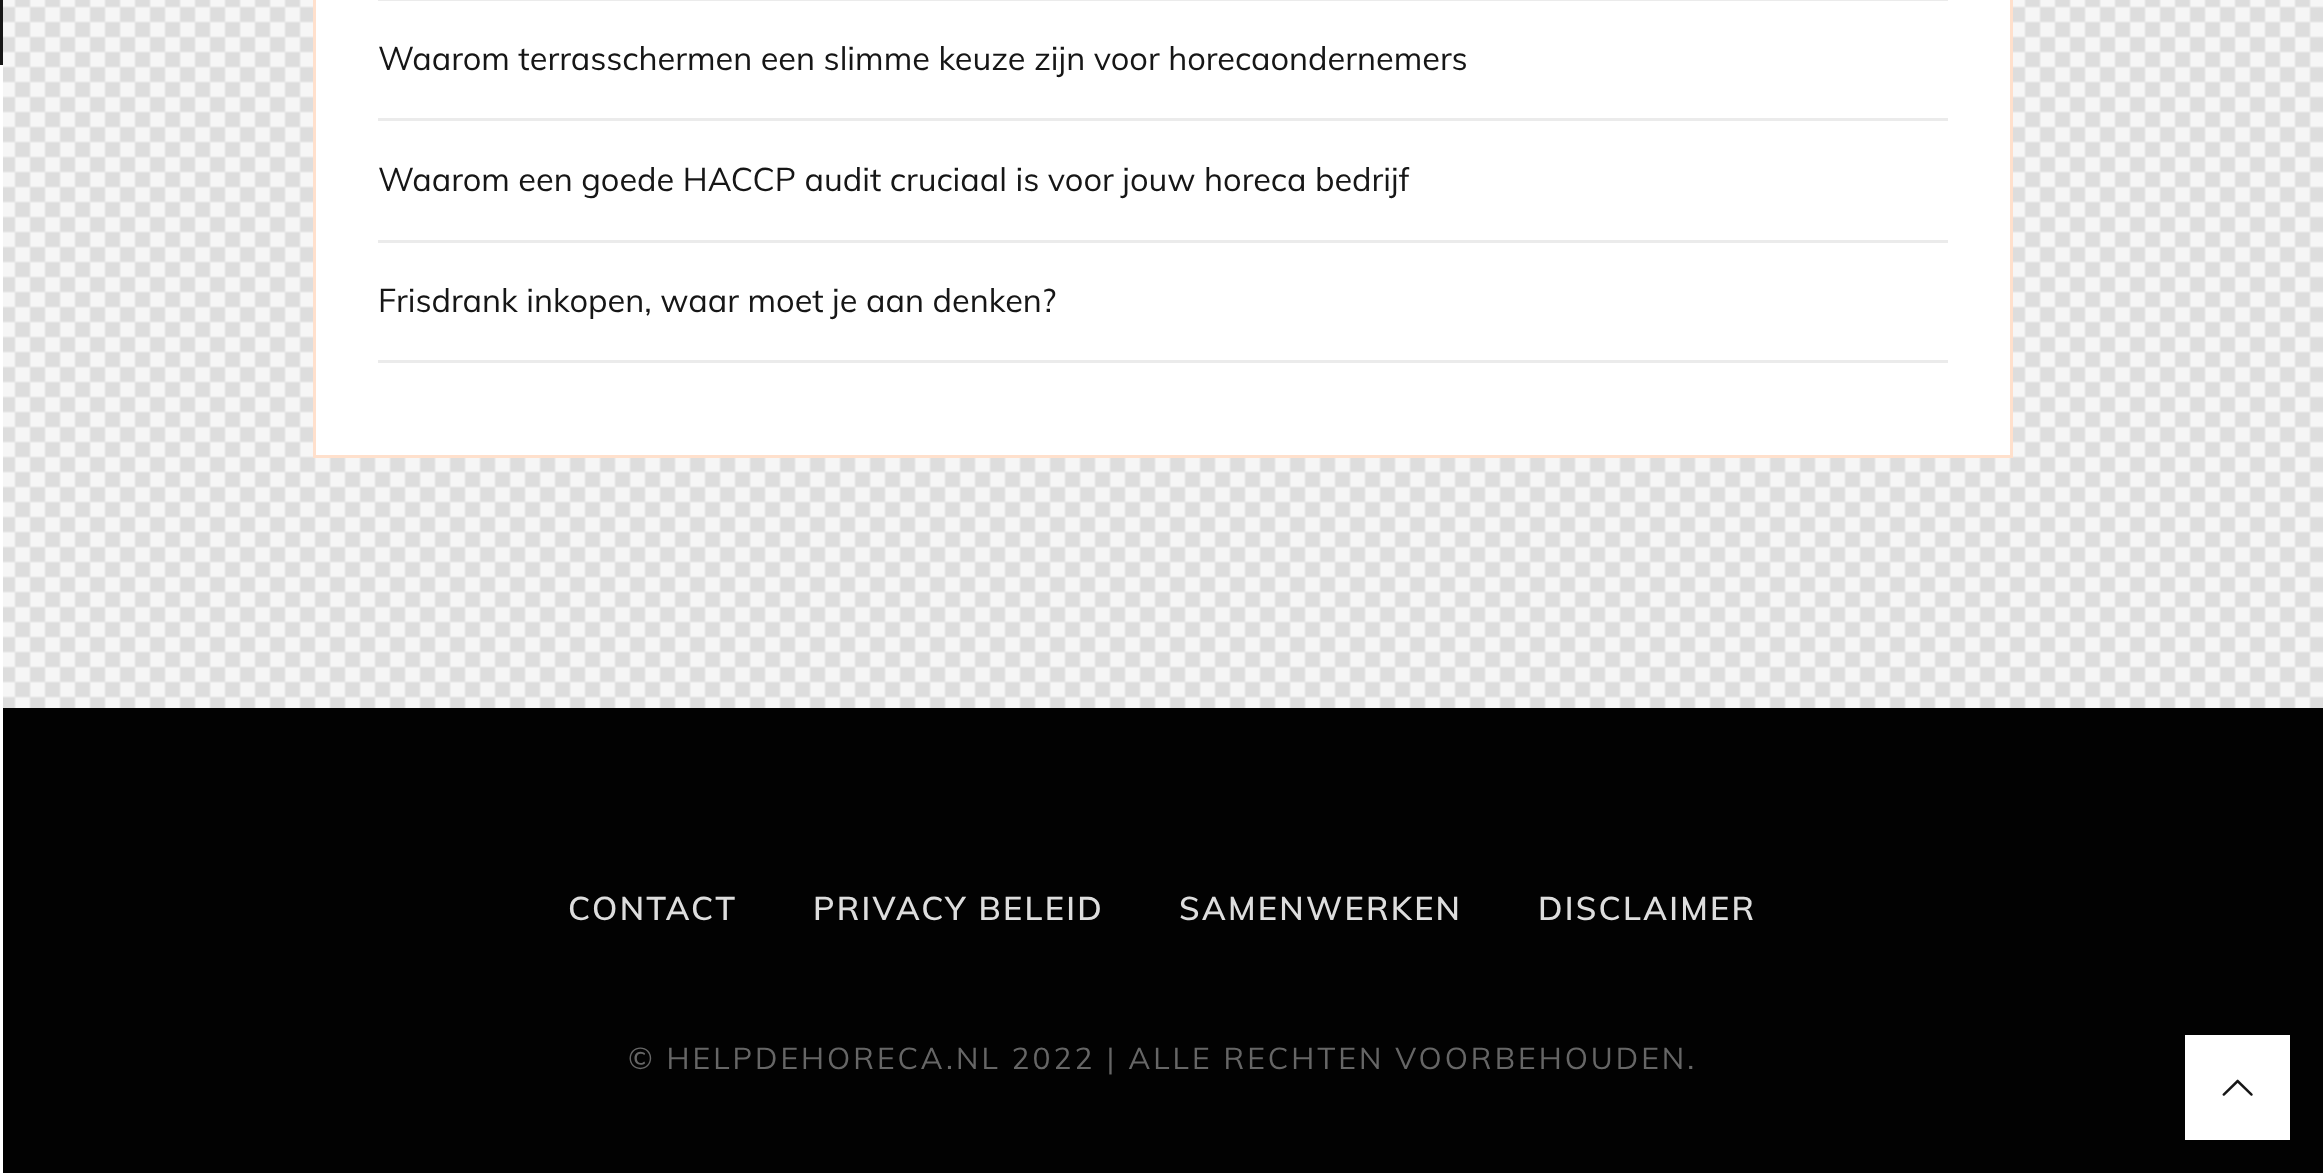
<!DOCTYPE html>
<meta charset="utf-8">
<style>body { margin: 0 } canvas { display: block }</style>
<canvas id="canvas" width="2323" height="1173"></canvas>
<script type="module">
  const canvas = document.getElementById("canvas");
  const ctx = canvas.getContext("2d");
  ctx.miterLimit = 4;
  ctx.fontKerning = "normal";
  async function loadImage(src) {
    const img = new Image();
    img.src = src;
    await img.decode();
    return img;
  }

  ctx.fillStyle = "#ffffff";
  ctx.fillRect(0, 0, 2323, 1173);
  ctx.drawImage(await loadImage("img1.png"), 3, 0, 2320, 708);
  ctx.fillStyle = "#161616";
  ctx.fillRect(0, 0, 3, 65);
  ctx.fillStyle = "#ffffff";
  ctx.beginPath();
  ctx.rect(314.5, -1.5, 1697, 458);
  ctx.fill();
  ctx.strokeStyle = "#ffe0cc";
  ctx.lineWidth = 3;
  ctx.stroke();
  ctx.fillStyle = "#ebebeb";
  ctx.fillRect(378, 0, 1570, 1);
  ctx.fillRect(378, 118, 1570, 3);
  ctx.font = "32.5px Muli";
  ctx.fillStyle = "#161616";
  ctx.fillText("Waarom terrasschermen een slimme keuze zijn voor horecaondernemers", 378, 70);
  ctx.fillStyle = "#ebebeb";
  ctx.fillRect(378, 240, 1570, 3);
  ctx.fillStyle = "#161616";
  ctx.fillText("Waarom een goede HACCP audit cruciaal is voor jouw horeca bedrijf", 378, 191);
  ctx.fillStyle = "#ebebeb";
  ctx.fillRect(378, 360, 1570, 3);
  ctx.fillStyle = "#161616";
  ctx.fillText("Frisdrank inkopen, waar moet je aan denken?", 378, 312);
  ctx.fillStyle = "#020202";
  ctx.fillRect(3, 708, 2320, 465);
  ctx.letterSpacing = "2.25px";
  ctx.font = "600 32.5px Muli";
  ctx.fillStyle = "#dddddd";
  ctx.fillText("CONTACT", 568, 920);
  ctx.fillText("PRIVACY BELEID", 813, 920);
  ctx.fillText("SAMENWERKEN", 1179, 920);
  ctx.fillText("DISCLAIMER", 1538, 920);
  ctx.letterSpacing = "3px";
  ctx.font = "30px Muli";
  ctx.fillStyle = "#666666";
  ctx.fillText("© HELPDEHORECA.NL 2022 | ALLE RECHTEN VOORBEHOUDEN.", 628, 1069);
  ctx.fillStyle = "#ffffff";
  ctx.fillRect(2185, 1035, 105, 105);
  ctx.drawImage(await loadImage("img2.png"), 2222, 1079, 31, 17);
</script>
